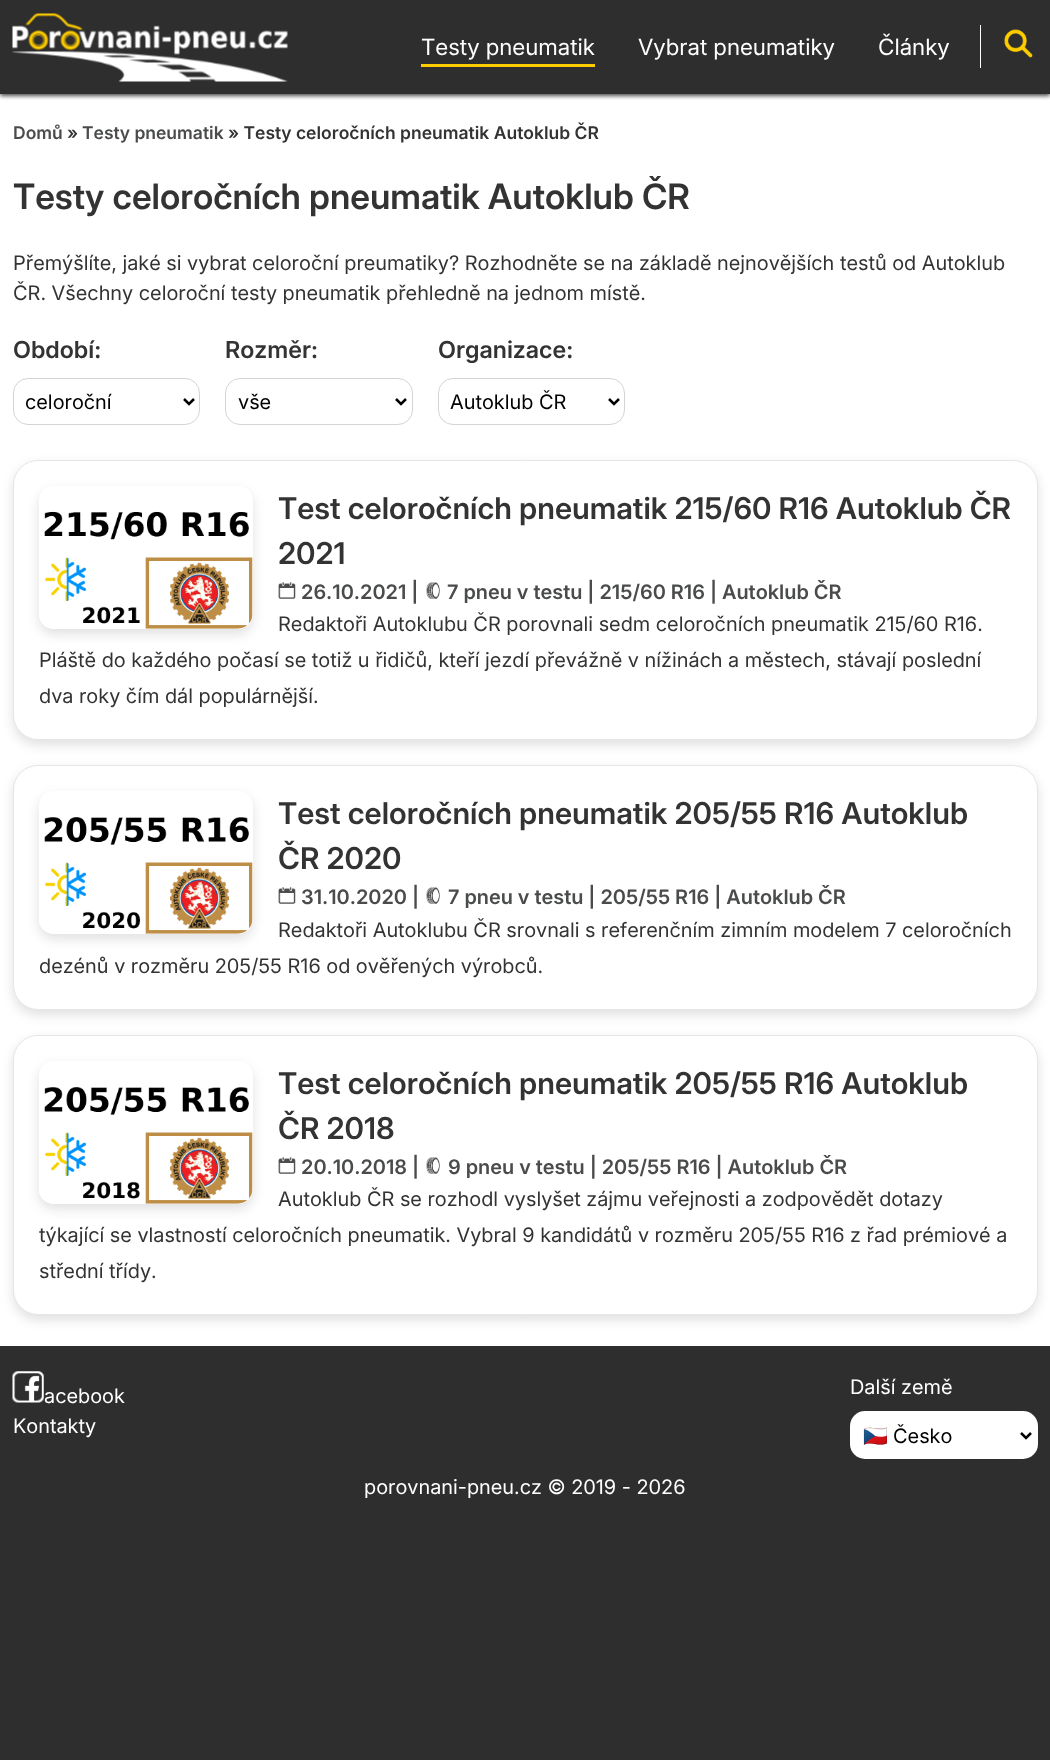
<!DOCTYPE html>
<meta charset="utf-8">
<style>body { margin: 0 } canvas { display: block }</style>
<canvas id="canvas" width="1050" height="1760"></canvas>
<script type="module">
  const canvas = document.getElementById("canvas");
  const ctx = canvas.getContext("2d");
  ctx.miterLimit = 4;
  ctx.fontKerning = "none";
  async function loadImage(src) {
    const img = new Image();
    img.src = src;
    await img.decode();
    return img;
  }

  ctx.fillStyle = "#2d2e2d";
  ctx.fillRect(0, 0, 1050, 1760);
  ctx.fillStyle = "#ffffff";
  ctx.fillRect(0, 94, 1050, 1252);
  ctx.fillStyle = "#4a4b4b";
  ctx.filter = "blur(2px)";
  ctx.beginPath();
  ctx.rect(0, 3, 1050, 93);
  ctx.fill();
  ctx.filter = "none";
  ctx.fillStyle = "#2d2e2d";
  ctx.fillRect(0, 0, 1050, 94);
  ctx.drawImage(await loadImage("img1.png"), 12, 13, 276, 69);
  ctx.font = "22.5px 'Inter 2'";
  ctx.fillStyle = "#ffffff";
  ctx.fillText("Testy pneumatik", 421, 55);
  ctx.fillStyle = "#ffcc00";
  ctx.fillRect(421, 64, 174, 3);
  ctx.fillStyle = "#ffffff";
  ctx.fillText("Vybrat pneumatiky", 638, 55);
  ctx.fillText("Články", 878, 55);
  ctx.fillRect(980, 25, 1, 43);
  ctx.drawImage(await loadImage("img2.png"), 1004, 29, 29, 29);
  ctx.font = "600 17.5px Inter";
  ctx.fillStyle = "#4a4b4b";
  ctx.fillText("Domů", 13, 139);
  ctx.fillStyle = "#333333";
  ctx.fillText("»", 67, 139);
  ctx.fillStyle = "#4a4b4b";
  ctx.fillText("Testy pneumatik", 82, 139);
  ctx.fillStyle = "#333333";
  ctx.fillText("» Testy celoročních pneumatik Autoklub ČR", 228, 139);
  ctx.font = "600 35px 'Inter 2'";
  ctx.fillText("Testy celoročních pneumatik Autoklub ČR", 13, 209);
  ctx.font = "20px Inter";
  ctx.fillText("Přemýšlíte, jaké si vybrat celoroční preumatiky? Rozhodněte se na základě nejnovějších testů od Autoklub", 13, 270);
  ctx.fillText("ČR. Všechny celoroční testy pneumatik přehledně na jednom místě.", 13, 300);
  ctx.font = "600 23.5px 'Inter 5'";
  ctx.fillText("Období:", 13, 358);
  ctx.beginPath();
  ctx.roundRect(13.5, 378.5, 186, 46, 14.5);
  ctx.strokeStyle = "#d4d4d4";
  ctx.stroke();
  ctx.beginPath();
  ctx.moveTo(184, 399);
  ctx.lineTo(189, 404);
  ctx.lineTo(194, 399);
  ctx.strokeStyle = "#000000";
  ctx.lineWidth = 2.5;
  ctx.stroke();
  ctx.font = "20px Inter";
  ctx.fillStyle = "#000000";
  ctx.fillText("celoroční", 25, 409);
  ctx.font = "600 23.5px 'Inter 5'";
  ctx.fillStyle = "#333333";
  ctx.fillText("Rozměr:", 225, 358);
  ctx.beginPath();
  ctx.roundRect(225.5, 378.5, 187, 46, 14.5);
  ctx.strokeStyle = "#d4d4d4";
  ctx.lineWidth = 1;
  ctx.stroke();
  ctx.beginPath();
  ctx.moveTo(396, 399);
  ctx.lineTo(401, 404);
  ctx.lineTo(406, 399);
  ctx.strokeStyle = "#000000";
  ctx.lineWidth = 2.5;
  ctx.stroke();
  ctx.font = "20px Inter";
  ctx.fillStyle = "#000000";
  ctx.fillText("vše", 238, 409);
  ctx.font = "600 23.5px 'Inter 5'";
  ctx.fillStyle = "#333333";
  ctx.fillText("Organizace:", 438, 358);
  ctx.beginPath();
  ctx.roundRect(438.5, 378.5, 186, 46, 14.5);
  ctx.strokeStyle = "#d4d4d4";
  ctx.lineWidth = 1;
  ctx.stroke();
  ctx.beginPath();
  ctx.moveTo(609, 399);
  ctx.lineTo(614, 404);
  ctx.lineTo(619, 399);
  ctx.strokeStyle = "#000000";
  ctx.lineWidth = 2.5;
  ctx.stroke();
  ctx.font = "20px Inter";
  ctx.fillStyle = "#000000";
  ctx.fillText("Autoklub ČR", 450, 409);
  ctx.fillStyle = "rgba(0, 0, 0, 0.12)";
  ctx.filter = "blur(6px)";
  ctx.beginPath();
  ctx.roundRect(13, 465, 1025, 280, 25);
  ctx.fill();
  ctx.filter = "none";
  ctx.fillStyle = "#ffffff";
  ctx.beginPath();
  ctx.roundRect(13.5, 460.5, 1024, 279, 24.5);
  ctx.fill();
  ctx.strokeStyle = "#e6e6e6";
  ctx.lineWidth = 1;
  ctx.stroke();
  ctx.save();
  ctx.beginPath();
  ctx.moveTo(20, 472);
  ctx.lineTo(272, 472);
  ctx.lineTo(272, 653);
  ctx.lineTo(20, 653);
  ctx.closePath();
  ctx.moveTo(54, 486);
  ctx.lineTo(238, 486);
  ctx.bezierCurveTo(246.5, 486, 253, 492.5, 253, 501);
  ctx.lineTo(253, 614);
  ctx.bezierCurveTo(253, 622.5, 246.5, 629, 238, 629);
  ctx.lineTo(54, 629);
  ctx.bezierCurveTo(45.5, 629, 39, 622.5, 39, 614);
  ctx.lineTo(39, 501);
  ctx.bezierCurveTo(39, 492.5, 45.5, 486, 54, 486);
  ctx.closePath();
  ctx.clip("evenodd");
  ctx.fillStyle = "rgba(0, 0, 0, 0.12)";
  ctx.filter = "blur(6px)";
  ctx.beginPath();
  ctx.roundRect(39, 491, 214, 143, 15);
  ctx.fill();
  ctx.filter = "none";
  ctx.restore();
  ctx.drawImage(await loadImage("img3.png"), 39, 511, 214, 118);
  ctx.font = "600 30px 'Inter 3'";
  ctx.fillStyle = "#333333";
  ctx.fillText("Test celoročních pneumatik 215/60 R16 Autoklub ČR", 278, 519);
  ctx.fillText("2021", 278, 564);
  ctx.drawImage(await loadImage("img4.png"), 278, 582, 18, 17);
  ctx.font = "600 20px 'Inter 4'";
  ctx.fillStyle = "#4a4b4b";
  ctx.fillText("26.10.2021 |", 301, 599);
  ctx.drawImage(await loadImage("img5.png"), 426, 582, 14, 17);
  ctx.fillText("7 pneu v testu | 215/60 R16 | Autoklub ČR", 447, 599);
  ctx.font = "20px Inter";
  ctx.fillStyle = "#333333";
  ctx.fillText("Redaktoři Autoklubu ČR porovnali sedm celoročních pneumatik 215/60 R16.", 278, 631);
  ctx.fillText("Pláště do každého počasí se totiž u řidičů, kteří jezdí převážně v nížinách a městech, stávají poslední", 39, 667);
  ctx.fillText("dva roky čím dál populárnější.", 39, 703);
  ctx.fillStyle = "rgba(0, 0, 0, 0.12)";
  ctx.filter = "blur(6px)";
  ctx.beginPath();
  ctx.roundRect(13, 770, 1025, 245, 25);
  ctx.fill();
  ctx.filter = "none";
  ctx.fillStyle = "#ffffff";
  ctx.beginPath();
  ctx.roundRect(13.5, 765.5, 1024, 244, 24.5);
  ctx.fill();
  ctx.stroke();
  ctx.save();
  ctx.beginPath();
  ctx.moveTo(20, 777);
  ctx.lineTo(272, 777);
  ctx.lineTo(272, 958);
  ctx.lineTo(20, 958);
  ctx.closePath();
  ctx.moveTo(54, 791);
  ctx.lineTo(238, 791);
  ctx.bezierCurveTo(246.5, 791, 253, 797.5, 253, 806);
  ctx.lineTo(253, 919);
  ctx.bezierCurveTo(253, 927.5, 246.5, 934, 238, 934);
  ctx.lineTo(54, 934);
  ctx.bezierCurveTo(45.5, 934, 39, 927.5, 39, 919);
  ctx.lineTo(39, 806);
  ctx.bezierCurveTo(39, 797.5, 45.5, 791, 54, 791);
  ctx.closePath();
  ctx.clip("evenodd");
  ctx.fillStyle = "rgba(0, 0, 0, 0.12)";
  ctx.filter = "blur(6px)";
  ctx.beginPath();
  ctx.roundRect(39, 796, 214, 143, 15);
  ctx.fill();
  ctx.filter = "none";
  ctx.restore();
  ctx.drawImage(await loadImage("img6.png"), 39, 817, 214, 117);
  ctx.font = "600 30px 'Inter 3'";
  ctx.fillStyle = "#333333";
  ctx.fillText("Test celoročních pneumatik 205/55 R16 Autoklub", 278, 824);
  ctx.fillText("ČR 2020", 278, 869);
  ctx.drawImage(await loadImage("img4.png"), 278, 887, 18, 17);
  ctx.font = "600 20px 'Inter 4'";
  ctx.fillStyle = "#4a4b4b";
  ctx.fillText("31.10.2020 |", 301, 904);
  ctx.drawImage(await loadImage("img5.png"), 426, 887, 14, 17);
  ctx.fillText("7 pneu v testu | 205/55 R16 | Autoklub ČR", 448, 904);
  ctx.font = "20px Inter";
  ctx.fillStyle = "#333333";
  ctx.fillText("Redaktoři Autoklubu ČR srovnali s referenčním zimním modelem 7 celoročních", 278, 937);
  ctx.fillText("dezénů v rozměru 205/55 R16 od ověřených výrobců.", 39, 973);
  ctx.fillStyle = "rgba(0, 0, 0, 0.12)";
  ctx.filter = "blur(6px)";
  ctx.beginPath();
  ctx.roundRect(13, 1040, 1025, 280, 25);
  ctx.fill();
  ctx.filter = "none";
  ctx.fillStyle = "#ffffff";
  ctx.beginPath();
  ctx.roundRect(13.5, 1035.5, 1024, 279, 24.5);
  ctx.fill();
  ctx.stroke();
  ctx.save();
  ctx.beginPath();
  ctx.moveTo(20, 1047);
  ctx.lineTo(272, 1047);
  ctx.lineTo(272, 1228);
  ctx.lineTo(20, 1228);
  ctx.closePath();
  ctx.moveTo(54, 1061);
  ctx.lineTo(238, 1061);
  ctx.bezierCurveTo(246.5, 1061, 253, 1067.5, 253, 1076);
  ctx.lineTo(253, 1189);
  ctx.bezierCurveTo(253, 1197.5, 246.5, 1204, 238, 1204);
  ctx.lineTo(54, 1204);
  ctx.bezierCurveTo(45.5, 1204, 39, 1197.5, 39, 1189);
  ctx.lineTo(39, 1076);
  ctx.bezierCurveTo(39, 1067.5, 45.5, 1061, 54, 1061);
  ctx.closePath();
  ctx.clip("evenodd");
  ctx.fillStyle = "rgba(0, 0, 0, 0.12)";
  ctx.filter = "blur(6px)";
  ctx.beginPath();
  ctx.roundRect(39, 1066, 214, 143, 15);
  ctx.fill();
  ctx.filter = "none";
  ctx.restore();
  ctx.drawImage(await loadImage("img7.png"), 39, 1087, 214, 117);
  ctx.font = "600 30px 'Inter 3'";
  ctx.fillStyle = "#333333";
  ctx.fillText("Test celoročních pneumatik 205/55 R16 Autoklub", 278, 1094);
  ctx.fillText("ČR 2018", 278, 1139);
  ctx.drawImage(await loadImage("img4.png"), 278, 1157, 18, 17);
  ctx.font = "600 20px 'Inter 4'";
  ctx.fillStyle = "#4a4b4b";
  ctx.fillText("20.10.2018 |", 301, 1174);
  ctx.drawImage(await loadImage("img5.png"), 426, 1157, 14, 17);
  ctx.fillText("9 pneu v testu | 205/55 R16 | Autoklub ČR", 448, 1174);
  ctx.font = "20px Inter";
  ctx.fillStyle = "#333333";
  ctx.fillText("Autoklub ČR se rozhodl vyslyšet zájmu veřejnosti a zodpovědět dotazy", 278, 1206);
  ctx.fillText("týkající se vlastností celoročních pneumatik. Vybral 9 kandidátů v rozměru 205/55 R16 z řad prémiové a", 39, 1242);
  ctx.fillText("střední třídy.", 39, 1278);
  ctx.drawImage(await loadImage("img8.png"), 12, 1371, 32, 32);
  ctx.fillStyle = "#ffffff";
  ctx.fillText("acebook", 44, 1403);
  ctx.fillText("Kontakty", 13, 1433);
  ctx.fillText("Další země", 850, 1394);
  ctx.beginPath();
  ctx.roundRect(850, 1411, 188, 48, 15);
  ctx.fill();
  ctx.beginPath();
  ctx.moveTo(1021, 1433);
  ctx.lineTo(1026, 1438);
  ctx.lineTo(1031, 1433);
  ctx.strokeStyle = "#000000";
  ctx.lineWidth = 2.5;
  ctx.stroke();
  ctx.save();
  ctx.beginPath();
  ctx.rect(863, 1421, 153, 28);
  ctx.clip();
  ctx.font = "20px Noto Color Emoji";
  ctx.fillStyle = "#000000";
  ctx.fillText("🇨🇿", 863, 1443);
  ctx.restore();
  ctx.fillStyle = "#000000";
  ctx.fillText("Česko", 893, 1443);
  ctx.fillStyle = "#ffffff";
  ctx.fillText("porovnani-pneu.cz © 2019 - 2026", 364, 1494);
</script>
